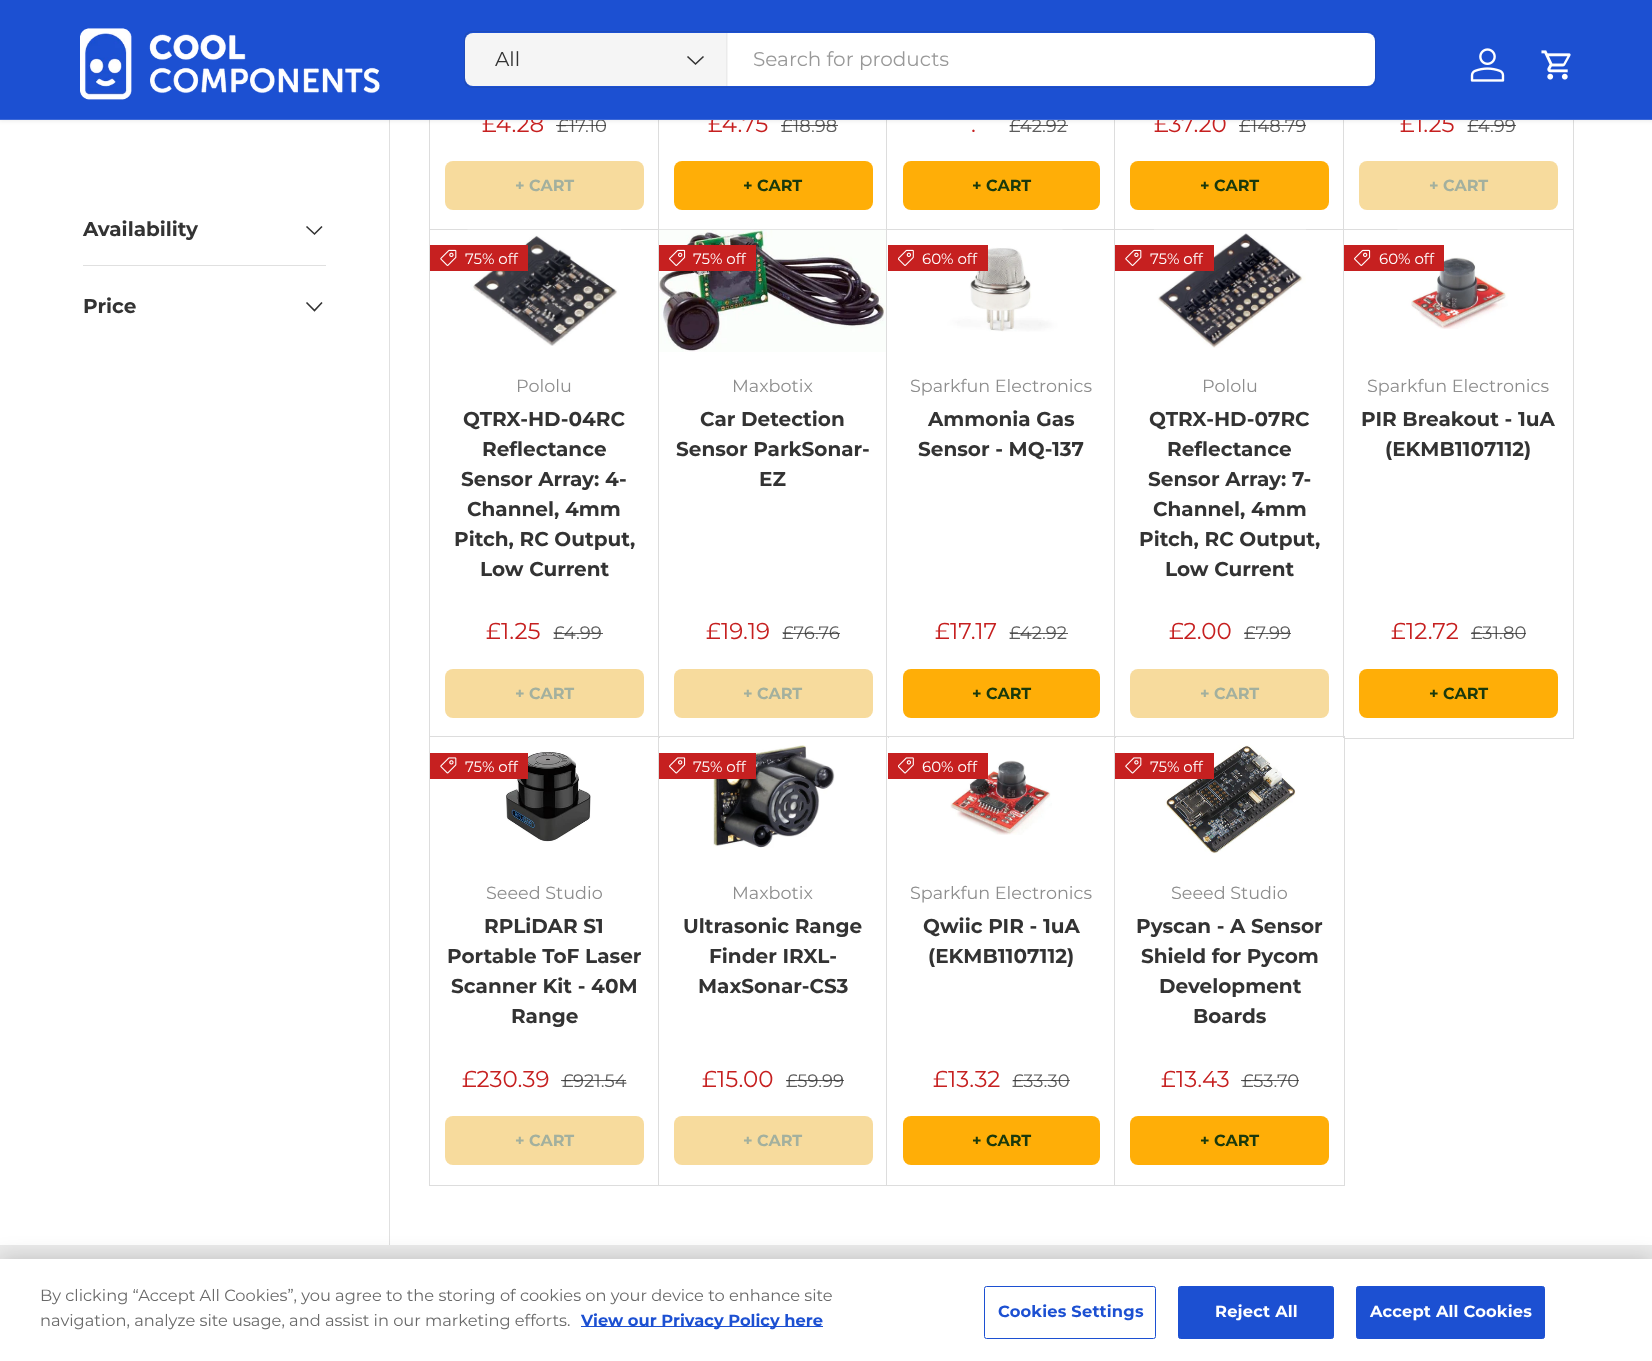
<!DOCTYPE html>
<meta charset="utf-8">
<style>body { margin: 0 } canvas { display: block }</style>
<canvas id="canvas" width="1652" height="1361"></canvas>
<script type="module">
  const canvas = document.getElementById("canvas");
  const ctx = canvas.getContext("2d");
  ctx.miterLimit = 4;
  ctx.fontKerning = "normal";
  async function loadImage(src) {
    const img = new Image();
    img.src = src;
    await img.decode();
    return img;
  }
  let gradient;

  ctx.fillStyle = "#ffffff";
  ctx.fillRect(0, 0, 1652, 1361);
  ctx.fillStyle = "#e0e0e0";
  ctx.fillRect(389, 120, 1, 1125);
  ctx.strokeStyle = "#dddddd";
  ctx.strokeRect(429.5, -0.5, 230, 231);
  ctx.font = "18px Montserrat";
  ctx.fillStyle = "#5c5c5c";
  ctx.fillText("£17.10", 557, 132);
  ctx.fillStyle = "rgba(51, 51, 51, 0.8)";
  ctx.fillRect(556, 125, 50, 1);
  ctx.strokeRect(658.5, -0.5, 230, 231);
  ctx.fillStyle = "#ffffff";
  ctx.fillRect(659, 120, 1, 109);
  ctx.fillStyle = "#5c5c5c";
  ctx.fillText("£18.98", 781, 132);
  ctx.fillStyle = "rgba(51, 51, 51, 0.8)";
  ctx.fillRect(781, 125, 57, 1);
  ctx.strokeRect(886.5, -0.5, 229, 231);
  ctx.fillStyle = "#ffffff";
  ctx.fillRect(888, 120, 1, 109);
  ctx.fillStyle = "#5c5c5c";
  ctx.fillText("£42.92", 1009, 132);
  ctx.fillStyle = "rgba(51, 51, 51, 0.8)";
  ctx.fillRect(1010, 125, 58, 1);
  ctx.strokeRect(1114.5, -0.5, 230, 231);
  ctx.fillStyle = "#ffffff";
  ctx.fillRect(1115, 120, 1, 109);
  ctx.fillStyle = "#5c5c5c";
  ctx.fillText("£148.79", 1239, 132);
  ctx.fillStyle = "rgba(51, 51, 51, 0.8)";
  ctx.fillRect(1239, 125, 67, 1);
  ctx.strokeRect(1343.5, -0.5, 230, 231);
  ctx.fillStyle = "#ffffff";
  ctx.fillRect(1344, 120, 1, 109);
  ctx.fillStyle = "#5c5c5c";
  ctx.fillText("£4.99", 1467, 132);
  ctx.fillStyle = "rgba(51, 51, 51, 0.8)";
  ctx.fillRect(1468, 125, 48, 1);
  ctx.fillStyle = "rgba(0, 0, 0, 0.08)";
  ctx.filter = "blur(2px)";
  ctx.beginPath();
  ctx.rect(-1, -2, 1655, 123);
  ctx.fill();
  ctx.filter = "none";
  ctx.font = "23px Montserrat";
  ctx.fillStyle = "#c62020";
  ctx.fillText("£4.28", 482, 132);
  ctx.fillText("£4.75", 708, 132);
  ctx.fillText("£37.20", 1154, 132);
  ctx.fillText("£1.25", 1400, 132);
  ctx.fillStyle = "#1c50d2";
  ctx.fillRect(0, 0, 1652, 119);
  ctx.drawImage(await loadImage("img1.png"), 80, 28, 300, 72);
  ctx.beginPath();
  ctx.roundRect(464.5, 31.5, 911, 56, 7.5);
  ctx.strokeStyle = "#1f4cba";
  ctx.stroke();
  ctx.fillStyle = "#ffffff";
  ctx.beginPath();
  ctx.roundRect(465, 33, 910, 53, 8);
  ctx.fill();
  ctx.fillStyle = "rgba(51, 51, 51, 0.05)";
  ctx.fillRect(465, 33, 263, 53);
  ctx.fillStyle = "#ebebeb";
  ctx.fillRect(726, 33, 1, 53);
  ctx.font = "20px Montserrat";
  ctx.fillStyle = "#333333";
  ctx.fillText("All", 495, 66);
  ctx.beginPath();
  ctx.moveTo(703.5, 56.5);
  ctx.lineTo(695.5, 64);
  ctx.lineTo(687.5, 56.5);
  ctx.strokeStyle = "#333333";
  ctx.lineWidth = 1.6;
  ctx.stroke();
  ctx.fillStyle = "#999999";
  ctx.fillText("Search for products", 753, 66);
  ctx.drawImage(await loadImage("img2.png"), 1470, 48, 35, 34);
  ctx.drawImage(await loadImage("img3.png"), 1541, 50, 30, 30);
  ctx.fillStyle = "#3e6ad9";
  ctx.fillRect(0, 119, 1652, 1);
  ctx.fillStyle = "#e0e0e0";
  ctx.fillRect(83, 265, 243, 1);
  ctx.font = "bold 20px Montserrat";
  ctx.fillStyle = "#333333";
  ctx.fillText("Availability", 83, 236);
  ctx.beginPath();
  ctx.moveTo(322, 226.5);
  ctx.lineTo(314.5, 234);
  ctx.lineTo(306.5, 226.5);
  ctx.stroke();
  ctx.fillText("Price", 83, 313);
  ctx.beginPath();
  ctx.moveTo(322, 302.5);
  ctx.lineTo(314.5, 310.5);
  ctx.lineTo(306.5, 302.5);
  ctx.stroke();
  gradient = ctx.createLinearGradient(457, 114, 1030, 257);
  gradient.addColorStop(0.6, "#f7db9d");
  gradient.addColorStop(0.6, "#ffdf9c");
  gradient.addColorStop(1, "#ffdf9c");
  ctx.fillStyle = gradient;
  ctx.beginPath();
  ctx.roundRect(445, 161, 199, 49, 8);
  ctx.fill();
  ctx.font = "bold 16px Montserrat";
  ctx.fillStyle = "#a3b09e";
  ctx.fillText("+ CART", 515, 191);
  gradient = ctx.createLinearGradient(288, 114, 861, 257);
  gradient.addColorStop(0.6, "#eca609");
  gradient.addColorStop(0.6, "#ffae07");
  gradient.addColorStop(1, "#ffae07");
  ctx.fillStyle = gradient;
  ctx.beginPath();
  ctx.roundRect(674, 161, 199, 49, 8);
  ctx.fill();
  ctx.fillStyle = "#1a390c";
  ctx.fillText("+ CART", 743, 191);
  ctx.font = "23px Montserrat";
  ctx.fillStyle = "#c62020";
  ctx.fillText(".", 971, 132);
  gradient = ctx.createLinearGradient(519, 115, 1088, 257);
  gradient.addColorStop(0.6, "#eca609");
  gradient.addColorStop(0.6, "#ffae07");
  gradient.addColorStop(1, "#ffae07");
  ctx.fillStyle = gradient;
  ctx.beginPath();
  ctx.roundRect(903, 161, 197, 49, 8);
  ctx.fill();
  ctx.font = "bold 16px Montserrat";
  ctx.fillStyle = "#1a390c";
  ctx.fillText("+ CART", 972, 191);
  gradient = ctx.createLinearGradient(744, 114, 1317, 257);
  gradient.addColorStop(0.6, "#eca609");
  gradient.addColorStop(0.6, "#ffae07");
  gradient.addColorStop(1, "#ffae07");
  ctx.fillStyle = gradient;
  ctx.beginPath();
  ctx.roundRect(1130, 161, 199, 49, 8);
  ctx.fill();
  ctx.fillStyle = "#1a390c";
  ctx.fillText("+ CART", 1200, 191);
  gradient = ctx.createLinearGradient(1370, 114, 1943, 257);
  gradient.addColorStop(0.6, "#f7db9d");
  gradient.addColorStop(0.6, "#ffdf9c");
  gradient.addColorStop(1, "#ffdf9c");
  ctx.fillStyle = gradient;
  ctx.beginPath();
  ctx.roundRect(1359, 161, 199, 49, 8);
  ctx.fill();
  ctx.fillStyle = "#a3b09e";
  ctx.fillText("+ CART", 1429, 191);
  ctx.strokeStyle = "#dddddd";
  ctx.lineWidth = 1;
  ctx.strokeRect(429.5, 229.5, 230, 509);
  ctx.fillStyle = "#ffffff";
  ctx.fillRect(430, 230, 228, 1);
  ctx.drawImage(await loadImage("img4.png"), 467, 229, 154, 117);
  ctx.fillStyle = "#c62020";
  ctx.fillRect(430, 245, 98, 26);
  ctx.drawImage(await loadImage("img5.png"), 440, 249, 17, 17);
  ctx.font = "15px Montserrat";
  ctx.fillStyle = "#ffffff";
  ctx.fillText("75% off", 465, 264);
  ctx.font = "17.6px Montserrat";
  ctx.fillStyle = "#8d8d8d";
  ctx.fillText("Pololu", 516, 392);
  ctx.font = "bold 20px Montserrat";
  ctx.fillStyle = "#333333";
  ctx.fillText("QTRX-HD-04RC", 463, 426);
  ctx.fillText("Reflectance", 482, 456);
  ctx.fillText("Sensor Array: 4-", 461, 486);
  ctx.fillText("Channel, 4mm", 467, 516);
  ctx.fillText("Pitch, RC Output,", 454, 546);
  ctx.fillText("Low Current", 480, 576);
  ctx.font = "23px Montserrat";
  ctx.fillStyle = "#c62020";
  ctx.fillText("£1.25", 486, 639);
  ctx.font = "18px Montserrat";
  ctx.fillStyle = "#5c5c5c";
  ctx.fillText("£4.99", 553, 639);
  ctx.fillStyle = "rgba(51, 51, 51, 0.8)";
  ctx.fillRect(554, 633, 49, 1);
  gradient = ctx.createLinearGradient(457, 622, 1030, 765);
  gradient.addColorStop(0.6, "#f7db9d");
  gradient.addColorStop(0.6, "#ffdf9c");
  gradient.addColorStop(1, "#ffdf9c");
  ctx.fillStyle = gradient;
  ctx.beginPath();
  ctx.roundRect(445, 669, 199, 49, 8);
  ctx.fill();
  ctx.font = "bold 16px Montserrat";
  ctx.fillStyle = "#a3b09e";
  ctx.fillText("+ CART", 515, 699);
  ctx.strokeRect(658.5, 229.5, 230, 509);
  ctx.fillStyle = "#ffffff";
  ctx.fillRect(659, 230, 229, 508);
  ctx.drawImage(await loadImage("img6.png"), 659, 229, 227, 123);
  ctx.fillStyle = "#c62020";
  ctx.fillRect(659, 245, 97, 26);
  ctx.drawImage(await loadImage("img7.png"), 669, 249, 17, 17);
  ctx.font = "15px Montserrat";
  ctx.fillStyle = "#ffffff";
  ctx.fillText("75% off", 693, 264);
  ctx.font = "17.6px Montserrat";
  ctx.fillStyle = "#8d8d8d";
  ctx.fillText("Maxbotix", 732, 392);
  ctx.font = "bold 20px Montserrat";
  ctx.fillStyle = "#333333";
  ctx.fillText("Car Detection", 700, 426);
  ctx.fillText("Sensor ParkSonar-", 676, 456);
  ctx.fillText("EZ", 759, 486);
  ctx.font = "23px Montserrat";
  ctx.fillStyle = "#c62020";
  ctx.fillText("£19.19", 706, 639);
  ctx.font = "18px Montserrat";
  ctx.fillStyle = "#5c5c5c";
  ctx.fillText("£76.76", 782, 639);
  ctx.fillStyle = "rgba(51, 51, 51, 0.8)";
  ctx.fillRect(783, 633, 57, 1);
  gradient = ctx.createLinearGradient(685, 622, 1258, 765);
  gradient.addColorStop(0.6, "#f7db9d");
  gradient.addColorStop(0.6, "#ffdf9c");
  gradient.addColorStop(1, "#ffdf9c");
  ctx.fillStyle = gradient;
  ctx.beginPath();
  ctx.roundRect(674, 669, 199, 49, 8);
  ctx.fill();
  ctx.font = "bold 16px Montserrat";
  ctx.fillStyle = "#a3b09e";
  ctx.fillText("+ CART", 743, 699);
  ctx.strokeRect(886.5, 229.5, 229, 509);
  ctx.fillStyle = "#ffffff";
  ctx.fillRect(888, 230, 226, 508);
  ctx.drawImage(await loadImage("img8.png"), 940, 229, 123, 103);
  ctx.fillStyle = "#c62020";
  ctx.fillRect(888, 245, 100, 26);
  ctx.drawImage(await loadImage("img9.png"), 898, 249, 16, 17);
  ctx.font = "15px Montserrat";
  ctx.fillStyle = "#ffffff";
  ctx.fillText("60% off", 922, 264);
  ctx.font = "17.6px Montserrat";
  ctx.fillStyle = "#8d8d8d";
  ctx.fillText("Sparkfun Electronics", 910, 392);
  ctx.font = "bold 20px Montserrat";
  ctx.fillStyle = "#333333";
  ctx.fillText("Ammonia Gas", 928, 426);
  ctx.fillText("Sensor - MQ-137", 918, 456);
  ctx.font = "23px Montserrat";
  ctx.fillStyle = "#c62020";
  ctx.fillText("£17.17", 935, 639);
  ctx.font = "18px Montserrat";
  ctx.fillStyle = "#5c5c5c";
  ctx.fillText("£42.92", 1009, 639);
  ctx.fillStyle = "rgba(51, 51, 51, 0.8)";
  ctx.fillRect(1010, 633, 58, 1);
  gradient = ctx.createLinearGradient(519, 622, 1088, 764);
  gradient.addColorStop(0.6, "#eca609");
  gradient.addColorStop(0.6, "#ffae07");
  gradient.addColorStop(1, "#ffae07");
  ctx.fillStyle = gradient;
  ctx.beginPath();
  ctx.roundRect(903, 669, 197, 49, 8);
  ctx.fill();
  ctx.font = "bold 16px Montserrat";
  ctx.fillStyle = "#1a390c";
  ctx.fillText("+ CART", 972, 699);
  ctx.strokeRect(1114.5, 229.5, 230, 509);
  ctx.fillStyle = "#ffffff";
  ctx.fillRect(1115, 230, 228, 508);
  ctx.drawImage(await loadImage("img10.png"), 1154, 229, 152, 119);
  ctx.fillStyle = "#c62020";
  ctx.fillRect(1115, 245, 99, 26);
  ctx.drawImage(await loadImage("img5.png"), 1125, 249, 17, 17);
  ctx.font = "15px Montserrat";
  ctx.fillStyle = "#ffffff";
  ctx.fillText("75% off", 1150, 264);
  ctx.font = "17.6px Montserrat";
  ctx.fillStyle = "#8d8d8d";
  ctx.fillText("Pololu", 1202, 392);
  ctx.font = "bold 20px Montserrat";
  ctx.fillStyle = "#333333";
  ctx.fillText("QTRX-HD-07RC", 1149, 426);
  ctx.fillText("Reflectance", 1167, 456);
  ctx.fillText("Sensor Array: 7-", 1148, 486);
  ctx.fillText("Channel, 4mm", 1153, 516);
  ctx.fillText("Pitch, RC Output,", 1139, 546);
  ctx.fillText("Low Current", 1165, 576);
  ctx.font = "23px Montserrat";
  ctx.fillStyle = "#c62020";
  ctx.fillText("£2.00", 1169, 639);
  ctx.font = "18px Montserrat";
  ctx.fillStyle = "#5c5c5c";
  ctx.fillText("£7.99", 1244, 639);
  ctx.fillStyle = "rgba(51, 51, 51, 0.8)";
  ctx.fillRect(1244, 633, 47, 1);
  gradient = ctx.createLinearGradient(1142, 622, 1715, 765);
  gradient.addColorStop(0.6, "#f7db9d");
  gradient.addColorStop(0.6, "#ffdf9c");
  gradient.addColorStop(1, "#ffdf9c");
  ctx.fillStyle = gradient;
  ctx.beginPath();
  ctx.roundRect(1130, 669, 199, 49, 8);
  ctx.fill();
  ctx.font = "bold 16px Montserrat";
  ctx.fillStyle = "#a3b09e";
  ctx.fillText("+ CART", 1200, 699);
  ctx.strokeRect(1343.5, 229.5, 230, 509);
  ctx.fillStyle = "#ffffff";
  ctx.fillRect(1344, 230, 229, 508);
  ctx.drawImage(await loadImage("img11.png"), 1397, 229, 123, 100);
  ctx.fillStyle = "#c62020";
  ctx.fillRect(1344, 245, 100, 26);
  ctx.drawImage(await loadImage("img7.png"), 1354, 249, 17, 17);
  ctx.font = "15px Montserrat";
  ctx.fillStyle = "#ffffff";
  ctx.fillText("60% off", 1379, 264);
  ctx.font = "17.6px Montserrat";
  ctx.fillStyle = "#8d8d8d";
  ctx.fillText("Sparkfun Electronics", 1367, 392);
  ctx.font = "bold 20px Montserrat";
  ctx.fillStyle = "#333333";
  ctx.fillText("PIR Breakout - 1uA", 1361, 426);
  ctx.fillText("(EKMB1107112)", 1385, 456);
  ctx.font = "23px Montserrat";
  ctx.fillStyle = "#c62020";
  ctx.fillText("£12.72", 1391, 639);
  ctx.font = "18px Montserrat";
  ctx.fillStyle = "#5c5c5c";
  ctx.fillText("£31.80", 1471, 639);
  ctx.fillStyle = "rgba(51, 51, 51, 0.8)";
  ctx.fillRect(1471, 633, 55, 1);
  gradient = ctx.createLinearGradient(973, 622, 1546, 765);
  gradient.addColorStop(0.6, "#eca609");
  gradient.addColorStop(0.6, "#ffae07");
  gradient.addColorStop(1, "#ffae07");
  ctx.fillStyle = gradient;
  ctx.beginPath();
  ctx.roundRect(1359, 669, 199, 49, 8);
  ctx.fill();
  ctx.font = "bold 16px Montserrat";
  ctx.fillStyle = "#1a390c";
  ctx.fillText("+ CART", 1429, 699);
  ctx.strokeRect(429.5, 736.5, 230, 449);
  ctx.fillStyle = "#ffffff";
  ctx.fillRect(430, 738, 228, 1);
  ctx.drawImage(await loadImage("img13.png"), 506, 751, 85, 91);
  ctx.fillStyle = "#c62020";
  ctx.fillRect(430, 753, 98, 26);
  ctx.drawImage(await loadImage("img12.png"), 440, 757, 17, 17);
  ctx.font = "15px Montserrat";
  ctx.fillStyle = "#ffffff";
  ctx.fillText("75% off", 465, 772);
  ctx.font = "17.6px Montserrat";
  ctx.fillStyle = "#8d8d8d";
  ctx.fillText("Seeed Studio", 486, 899);
  ctx.font = "bold 20px Montserrat";
  ctx.fillStyle = "#333333";
  ctx.fillText("RPLiDAR S1", 484, 933);
  ctx.fillText("Portable ToF Laser", 447, 963);
  ctx.fillText("Scanner Kit - 40M", 451, 993);
  ctx.fillText("Range", 511, 1023);
  ctx.font = "23px Montserrat";
  ctx.fillStyle = "#c62020";
  ctx.fillText("£230.39", 462, 1087);
  ctx.font = "18px Montserrat";
  ctx.fillStyle = "#5c5c5c";
  ctx.fillText("£921.54", 562, 1087);
  ctx.fillStyle = "rgba(51, 51, 51, 0.8)";
  ctx.fillRect(561, 1080, 65, 1);
  gradient = ctx.createLinearGradient(457, 1069, 1030, 1212);
  gradient.addColorStop(0.6, "#f7db9d");
  gradient.addColorStop(0.6, "#ffdf9c");
  gradient.addColorStop(1, "#ffdf9c");
  ctx.fillStyle = gradient;
  ctx.beginPath();
  ctx.roundRect(445, 1116, 199, 49, 8);
  ctx.fill();
  ctx.font = "bold 16px Montserrat";
  ctx.fillStyle = "#a3b09e";
  ctx.fillText("+ CART", 515, 1146);
  ctx.strokeRect(658.5, 736.5, 230, 449);
  ctx.fillStyle = "#ffffff";
  ctx.fillRect(659, 738, 229, 447);
  ctx.drawImage(await loadImage("img14.png"), 713, 745, 122, 103);
  ctx.fillStyle = "#c62020";
  ctx.fillRect(659, 753, 97, 26);
  ctx.drawImage(await loadImage("img15.png"), 669, 757, 17, 17);
  ctx.font = "15px Montserrat";
  ctx.fillStyle = "#ffffff";
  ctx.fillText("75% off", 693, 772);
  ctx.font = "17.6px Montserrat";
  ctx.fillStyle = "#8d8d8d";
  ctx.fillText("Maxbotix", 732, 899);
  ctx.font = "bold 20px Montserrat";
  ctx.fillStyle = "#333333";
  ctx.fillText("Ultrasonic Range", 683, 933);
  ctx.fillText("Finder IRXL-", 709, 963);
  ctx.fillText("MaxSonar-CS3", 698, 993);
  ctx.font = "23px Montserrat";
  ctx.fillStyle = "#c62020";
  ctx.fillText("£15.00", 702, 1087);
  ctx.font = "18px Montserrat";
  ctx.fillStyle = "#5c5c5c";
  ctx.fillText("£59.99", 786, 1087);
  ctx.fillStyle = "rgba(51, 51, 51, 0.8)";
  ctx.fillRect(786, 1080, 58, 1);
  gradient = ctx.createLinearGradient(685, 1069, 1258, 1212);
  gradient.addColorStop(0.6, "#f7db9d");
  gradient.addColorStop(0.6, "#ffdf9c");
  gradient.addColorStop(1, "#ffdf9c");
  ctx.fillStyle = gradient;
  ctx.beginPath();
  ctx.roundRect(674, 1116, 199, 49, 8);
  ctx.fill();
  ctx.font = "bold 16px Montserrat";
  ctx.fillStyle = "#a3b09e";
  ctx.fillText("+ CART", 743, 1146);
  ctx.strokeRect(886.5, 736.5, 229, 449);
  ctx.fillStyle = "#ffffff";
  ctx.fillRect(888, 738, 226, 447);
  ctx.drawImage(await loadImage("img17.png"), 950, 760, 102, 75);
  ctx.fillStyle = "#c62020";
  ctx.fillRect(888, 753, 100, 26);
  ctx.drawImage(await loadImage("img16.png"), 898, 757, 16, 17);
  ctx.font = "15px Montserrat";
  ctx.fillStyle = "#ffffff";
  ctx.fillText("60% off", 922, 772);
  ctx.font = "17.6px Montserrat";
  ctx.fillStyle = "#8d8d8d";
  ctx.fillText("Sparkfun Electronics", 910, 899);
  ctx.font = "bold 20px Montserrat";
  ctx.fillStyle = "#333333";
  ctx.fillText("Qwiic PIR - 1uA", 923, 933);
  ctx.fillText("(EKMB1107112)", 928, 963);
  ctx.font = "23px Montserrat";
  ctx.fillStyle = "#c62020";
  ctx.fillText("£13.32", 933, 1087);
  ctx.font = "18px Montserrat";
  ctx.fillStyle = "#5c5c5c";
  ctx.fillText("£33.30", 1012, 1087);
  ctx.fillStyle = "rgba(51, 51, 51, 0.8)";
  ctx.fillRect(1013, 1080, 57, 1);
  gradient = ctx.createLinearGradient(519, 1070, 1088, 1212);
  gradient.addColorStop(0.6, "#eca609");
  gradient.addColorStop(0.6, "#ffae07");
  gradient.addColorStop(1, "#ffae07");
  ctx.fillStyle = gradient;
  ctx.beginPath();
  ctx.roundRect(903, 1116, 197, 49, 8);
  ctx.fill();
  ctx.font = "bold 16px Montserrat";
  ctx.fillStyle = "#1a390c";
  ctx.fillText("+ CART", 972, 1146);
  ctx.strokeRect(1114.5, 736.5, 230, 449);
  ctx.fillStyle = "#ffffff";
  ctx.fillRect(1115, 738, 229, 447);
  ctx.drawImage(await loadImage("img18.png"), 1164, 745, 132, 109);
  ctx.fillStyle = "#c62020";
  ctx.fillRect(1115, 753, 99, 26);
  ctx.drawImage(await loadImage("img12.png"), 1125, 757, 17, 17);
  ctx.font = "15px Montserrat";
  ctx.fillStyle = "#ffffff";
  ctx.fillText("75% off", 1150, 772);
  ctx.font = "17.6px Montserrat";
  ctx.fillStyle = "#8d8d8d";
  ctx.fillText("Seeed Studio", 1171, 899);
  ctx.font = "bold 20px Montserrat";
  ctx.fillStyle = "#333333";
  ctx.fillText("Pyscan - A Sensor", 1136, 933);
  ctx.fillText("Shield for Pycom", 1141, 963);
  ctx.fillText("Development", 1159, 993);
  ctx.fillText("Boards", 1193, 1023);
  ctx.font = "23px Montserrat";
  ctx.fillStyle = "#c62020";
  ctx.fillText("£13.43", 1161, 1087);
  ctx.font = "18px Montserrat";
  ctx.fillStyle = "#5c5c5c";
  ctx.fillText("£53.70", 1242, 1087);
  ctx.fillStyle = "rgba(51, 51, 51, 0.8)";
  ctx.fillRect(1241, 1080, 58, 1);
  gradient = ctx.createLinearGradient(744, 1069, 1317, 1212);
  gradient.addColorStop(0.6, "#eca609");
  gradient.addColorStop(0.6, "#ffae07");
  gradient.addColorStop(1, "#ffae07");
  ctx.fillStyle = gradient;
  ctx.beginPath();
  ctx.roundRect(1130, 1116, 199, 49, 8);
  ctx.fill();
  ctx.font = "bold 16px Montserrat";
  ctx.fillStyle = "#1a390c";
  ctx.fillText("+ CART", 1200, 1146);
  ctx.fillStyle = "#ebebeb";
  ctx.fillRect(0, 1245, 1652, 14);
  ctx.fillStyle = "rgba(0, 0, 0, 0.2)";
  ctx.filter = "blur(11px)";
  ctx.beginPath();
  ctx.rect(0, 1259, 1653, 102);
  ctx.fill();
  ctx.filter = "none";
  ctx.fillStyle = "#ffffff";
  ctx.fillRect(0, 1259, 1652, 102);
  ctx.font = "16.25px Montserrat";
  ctx.fillStyle = "#696969";
  ctx.fillText("By clicking “Accept All Cookies”, you agree to the storing of cookies on your device to enhance site", 40, 1301);
  ctx.fillText("navigation, analyze site usage, and assist in our marketing efforts.", 40, 1326);
  ctx.fillStyle = "#1c50d2";
  ctx.fillRect(581, 1326, 242, 1);
  ctx.font = "bold 16.25px Montserrat";
  ctx.fillText("View our Privacy Policy here", 581, 1326);
  ctx.beginPath();
  ctx.roundRect(984.5, 1286.5, 171, 52, 2);
  ctx.strokeStyle = "#1c50d2";
  ctx.stroke();
  ctx.letterSpacing = "0.2px";
  ctx.fillText("Cookies Settings", 998, 1317);
  ctx.beginPath();
  ctx.roundRect(1178.5, 1286.5, 155, 52, 2);
  ctx.fill();
  ctx.stroke();
  ctx.fillStyle = "#ffffff";
  ctx.fillText("Reject All", 1215, 1317);
  ctx.fillStyle = "#1c50d2";
  ctx.beginPath();
  ctx.roundRect(1356.5, 1286.5, 188, 52, 2);
  ctx.fill();
  ctx.stroke();
  ctx.fillStyle = "#ffffff";
  ctx.fillText("Accept All Cookies", 1370, 1317);
</script>
